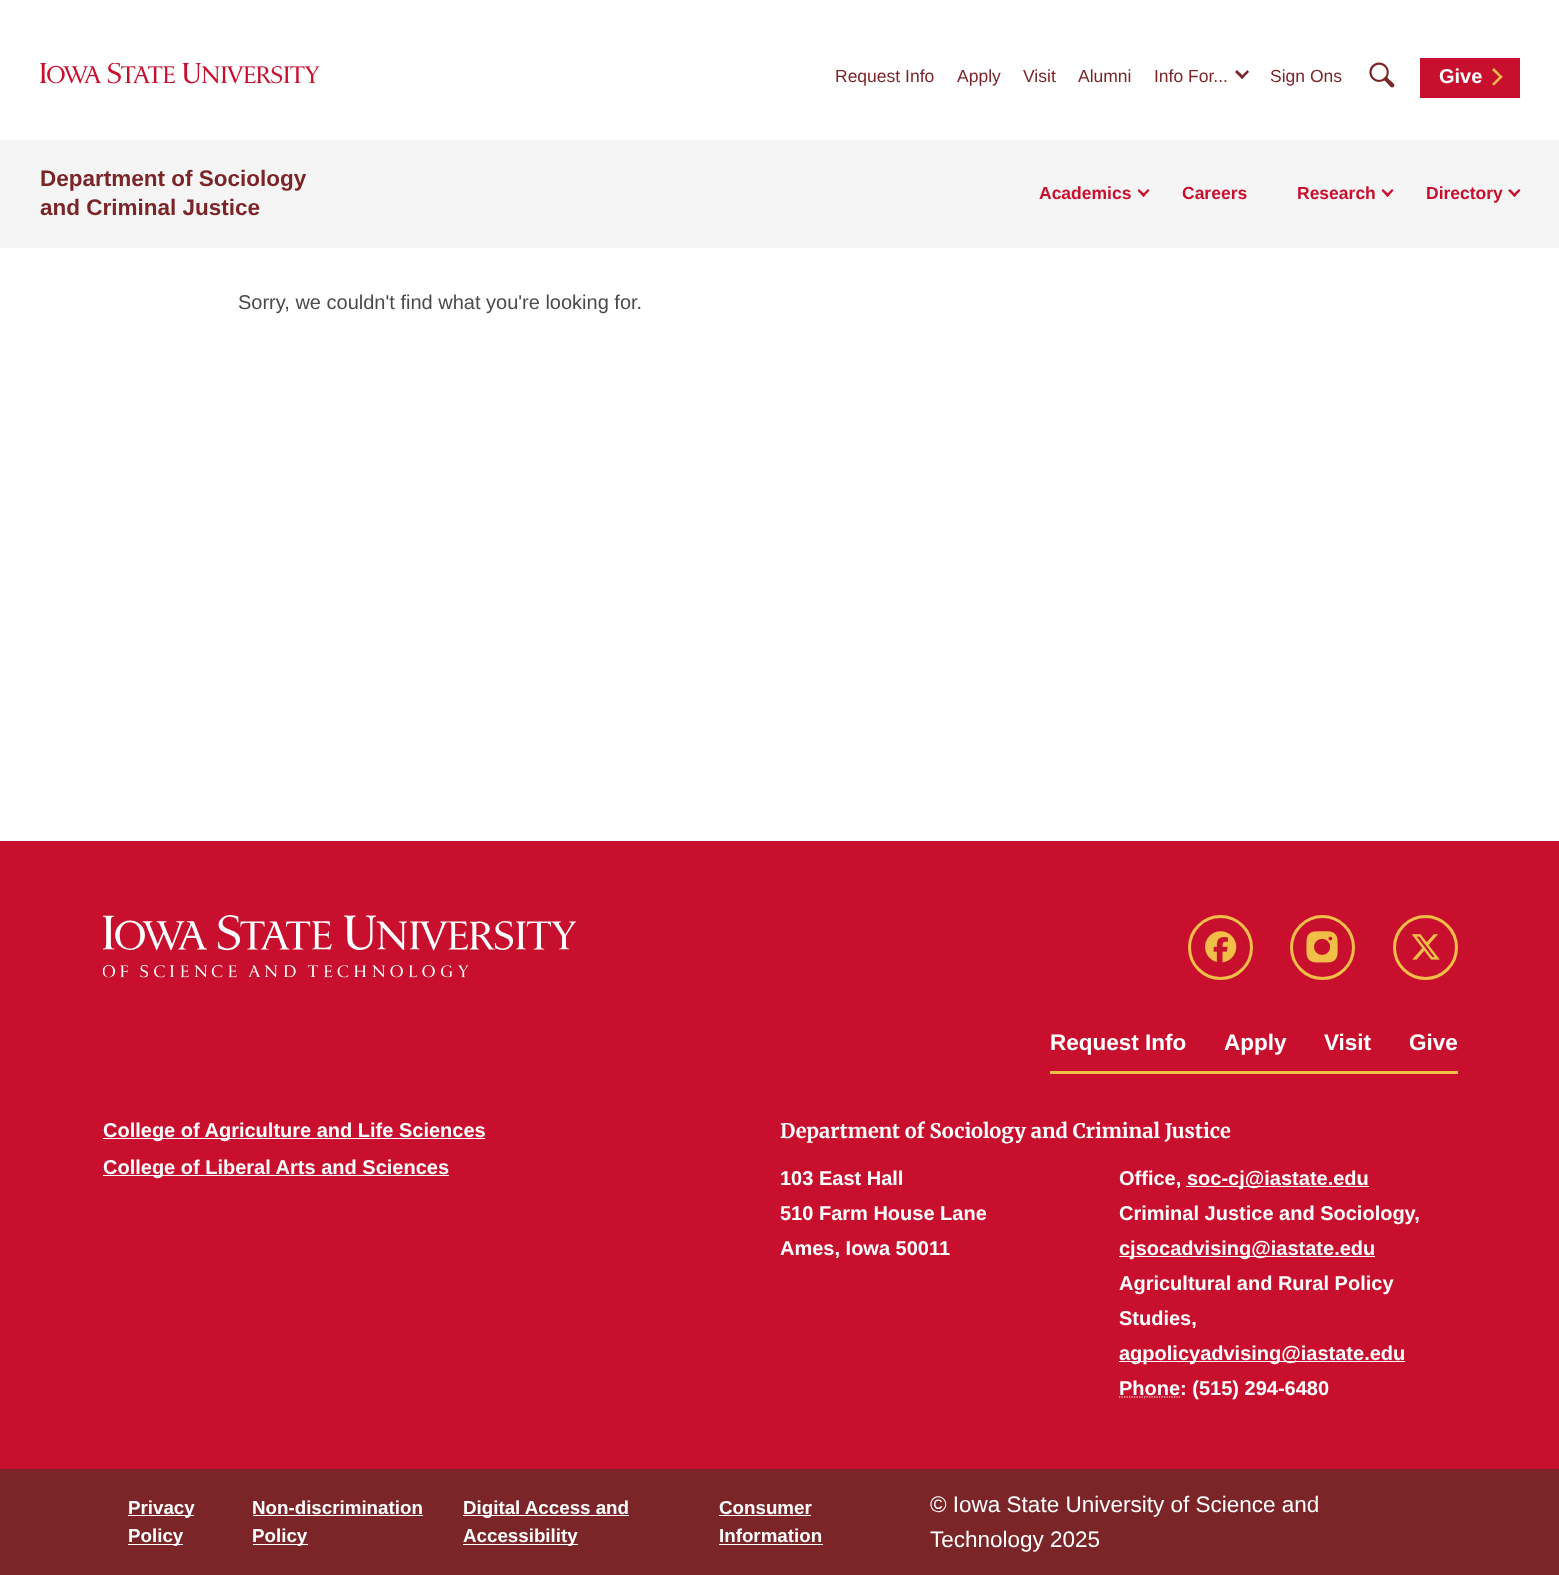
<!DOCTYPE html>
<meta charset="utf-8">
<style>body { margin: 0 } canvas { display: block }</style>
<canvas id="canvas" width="1559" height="1575"></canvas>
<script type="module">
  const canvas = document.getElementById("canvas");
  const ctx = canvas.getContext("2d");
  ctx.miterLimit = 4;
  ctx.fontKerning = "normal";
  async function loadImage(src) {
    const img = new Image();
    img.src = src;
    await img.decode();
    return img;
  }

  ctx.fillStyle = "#ffffff";
  ctx.fillRect(0, 0, 1559, 1575);
  ctx.drawImage(await loadImage("img1.png"), 40, 63, 280, 21);
  ctx.font = "17.5px Liberation Sans";
  ctx.fillStyle = "#7c2529";
  ctx.fillText("Request Info", 835, 82);
  ctx.fillText("Apply", 957, 82);
  ctx.fillText("Visit", 1023, 82);
  ctx.fillText("Alumni", 1078, 82);
  ctx.fillText("Info For...", 1154, 82);
  ctx.beginPath();
  ctx.moveTo(1247.5, 70);
  ctx.lineTo(1249, 72);
  ctx.lineTo(1242, 79);
  ctx.lineTo(1240.5, 77);
  ctx.closePath();
  ctx.fill();
  ctx.beginPath();
  ctx.moveTo(1237, 70);
  ctx.lineTo(1244, 77);
  ctx.lineTo(1242, 79);
  ctx.lineTo(1235, 72);
  ctx.closePath();
  ctx.fill();
  ctx.fillText("Sign Ons", 1270, 82);
  ctx.drawImage(await loadImage("img2.png"), 1369, 62, 26, 26);
  ctx.fillStyle = "#c8102e";
  ctx.fillRect(1420, 58, 100, 40);
  ctx.font = "bold 20px Liberation Sans";
  ctx.fillStyle = "#ffffff";
  ctx.fillText("Give", 1439, 83);
  ctx.fillStyle = "#f1be48";
  ctx.beginPath();
  ctx.moveTo(1492, 70);
  ctx.lineTo(1494, 68);
  ctx.lineTo(1502.5, 77);
  ctx.lineTo(1501, 78.5);
  ctx.closePath();
  ctx.fill();
  ctx.beginPath();
  ctx.moveTo(1492, 84);
  ctx.lineTo(1501, 75);
  ctx.lineTo(1502.5, 77);
  ctx.lineTo(1494, 85.5);
  ctx.closePath();
  ctx.fill();
  ctx.fillStyle = "#f5f5f5";
  ctx.fillRect(0, 140, 1559, 108);
  ctx.font = "bold 22.5px Liberation Sans";
  ctx.fillStyle = "#7c2529";
  ctx.fillText("Department of Sociology", 40, 186);
  ctx.fillText("and Criminal Justice", 40, 215);
  ctx.font = "bold 17.5px Liberation Sans";
  ctx.fillStyle = "#c8102e";
  ctx.fillText("Academics", 1039, 199);
  ctx.beginPath();
  ctx.moveTo(1148, 189);
  ctx.lineTo(1149.5, 190.5);
  ctx.lineTo(1143.5, 197);
  ctx.lineTo(1142, 195);
  ctx.closePath();
  ctx.fill();
  ctx.beginPath();
  ctx.moveTo(1139, 189);
  ctx.lineTo(1145.5, 195);
  ctx.lineTo(1143.5, 197);
  ctx.lineTo(1137.5, 190.5);
  ctx.closePath();
  ctx.fill();
  ctx.fillText("Careers", 1182, 199);
  ctx.fillText("Research", 1297, 199);
  ctx.beginPath();
  ctx.moveTo(1392, 189);
  ctx.lineTo(1393.5, 190.5);
  ctx.lineTo(1387.5, 197);
  ctx.lineTo(1386, 195);
  ctx.closePath();
  ctx.fill();
  ctx.beginPath();
  ctx.moveTo(1383, 189);
  ctx.lineTo(1389.5, 195);
  ctx.lineTo(1387.5, 197);
  ctx.lineTo(1381.5, 190.5);
  ctx.closePath();
  ctx.fill();
  ctx.fillText("Directory", 1426, 199);
  ctx.beginPath();
  ctx.moveTo(1519, 189);
  ctx.lineTo(1520.5, 190.5);
  ctx.lineTo(1514.5, 197);
  ctx.lineTo(1512.5, 195);
  ctx.closePath();
  ctx.fill();
  ctx.beginPath();
  ctx.moveTo(1510, 189);
  ctx.lineTo(1516, 195);
  ctx.lineTo(1514.5, 197);
  ctx.lineTo(1508, 190.5);
  ctx.closePath();
  ctx.fill();
  ctx.font = "20px Liberation Sans";
  ctx.fillStyle = "#4a4a4a";
  ctx.fillText("Sorry, we couldn't find what you're looking for.", 238, 309);
  ctx.fillStyle = "#c8102e";
  ctx.fillRect(0, 841, 1559, 628);
  ctx.drawImage(await loadImage("img3.png"), 103, 915, 473, 63);
  ctx.beginPath();
  ctx.arc(1220.5, 947.5, 31, 0, Math.PI * 2);
  ctx.strokeStyle = "#f1be48";
  ctx.lineWidth = 3;
  ctx.stroke();
  ctx.drawImage(await loadImage("img4.png"), 1205, 931, 32, 32);
  ctx.beginPath();
  ctx.arc(1322.5, 947.5, 31, 0, Math.PI * 2);
  ctx.stroke();
  ctx.drawImage(await loadImage("img5.png"), 1306, 931, 32, 32);
  ctx.beginPath();
  ctx.arc(1425.5, 947.5, 31, 0, Math.PI * 2);
  ctx.stroke();
  ctx.drawImage(await loadImage("img6.png"), 1411, 934, 29, 26);
  ctx.fillStyle = "#f1be48";
  ctx.fillRect(1050, 1071, 408, 3);
  ctx.font = "bold 22.5px Liberation Sans";
  ctx.fillStyle = "#ffffff";
  ctx.fillText("Request Info", 1050, 1050);
  ctx.fillText("Apply", 1224, 1050);
  ctx.fillText("Visit", 1324, 1050);
  ctx.fillText("Give", 1409, 1050);
  ctx.fillRect(103, 1138, 382, 1);
  ctx.font = "bold 20px Liberation Sans";
  ctx.fillText("College of Agriculture and Life Sciences", 103, 1137);
  ctx.fillRect(103, 1175, 346, 1);
  ctx.fillText("College of Liberal Arts and Sciences", 103, 1174);
  ctx.font = "bold 20px Merriweather";
  ctx.fillText("Department of Sociology and Criminal Justice", 780, 1138);
  ctx.font = "bold 20px Liberation Sans";
  ctx.fillText("103 East Hall", 780, 1185);
  ctx.fillText("510 Farm House Lane", 780, 1220);
  ctx.fillText("Ames, Iowa 50011", 780, 1255);
  ctx.fillText("Office,", 1119, 1185);
  ctx.fillRect(1186, 1186, 183, 1);
  ctx.fillText("soc-cj@iastate.edu", 1187, 1185);
  ctx.fillText("Criminal Justice and Sociology,", 1119, 1220);
  ctx.fillRect(1119, 1256, 256, 1);
  ctx.fillText("cjsocadvising@iastate.edu", 1119, 1255);
  ctx.fillText("Agricultural and Rural Policy", 1119, 1290);
  ctx.fillText("Studies,", 1119, 1325);
  ctx.fillRect(1119, 1361, 286, 1);
  ctx.fillText("agpolicyadvising@iastate.edu", 1119, 1360);
  ctx.beginPath();
  ctx.moveTo(1119, 1397);
  ctx.lineTo(1180, 1397);
  ctx.strokeStyle = "#ffffff";
  ctx.lineWidth = 1.2;
  ctx.setLineDash([1.25, 1.25]);
  ctx.stroke();
  ctx.fillText("Phone: (515) 294-6480", 1119, 1395);
  ctx.fillStyle = "#7c2529";
  ctx.fillRect(0, 1469, 1559, 106);
  ctx.fillStyle = "#ffffff";
  ctx.fillRect(128, 1515, 66, 1);
  ctx.font = "bold 18.75px Liberation Sans";
  ctx.fillText("Privacy", 128, 1514);
  ctx.fillRect(128, 1544, 55, 1);
  ctx.fillText("Policy", 128, 1542);
  ctx.fillText("Non-discrimination", 252, 1514);
  ctx.fillRect(253, 1515, 170, 1);
  ctx.fillRect(253, 1544, 55, 1);
  ctx.fillText("Policy", 252, 1542);
  ctx.fillRect(463, 1515, 166, 1);
  ctx.fillText("Digital Access and", 463, 1514);
  ctx.fillRect(463, 1544, 115, 1);
  ctx.fillText("Accessibility", 463, 1542);
  ctx.fillText("Consumer", 719, 1514);
  ctx.fillRect(719, 1515, 92, 1);
  ctx.fillText("Information", 719, 1542);
  ctx.fillRect(719, 1544, 104, 1);
  ctx.font = "22.5px Liberation Sans";
  ctx.fillText("© Iowa State University of Science and", 930, 1512);
  ctx.fillText("Technology 2025", 930, 1547);
</script>
